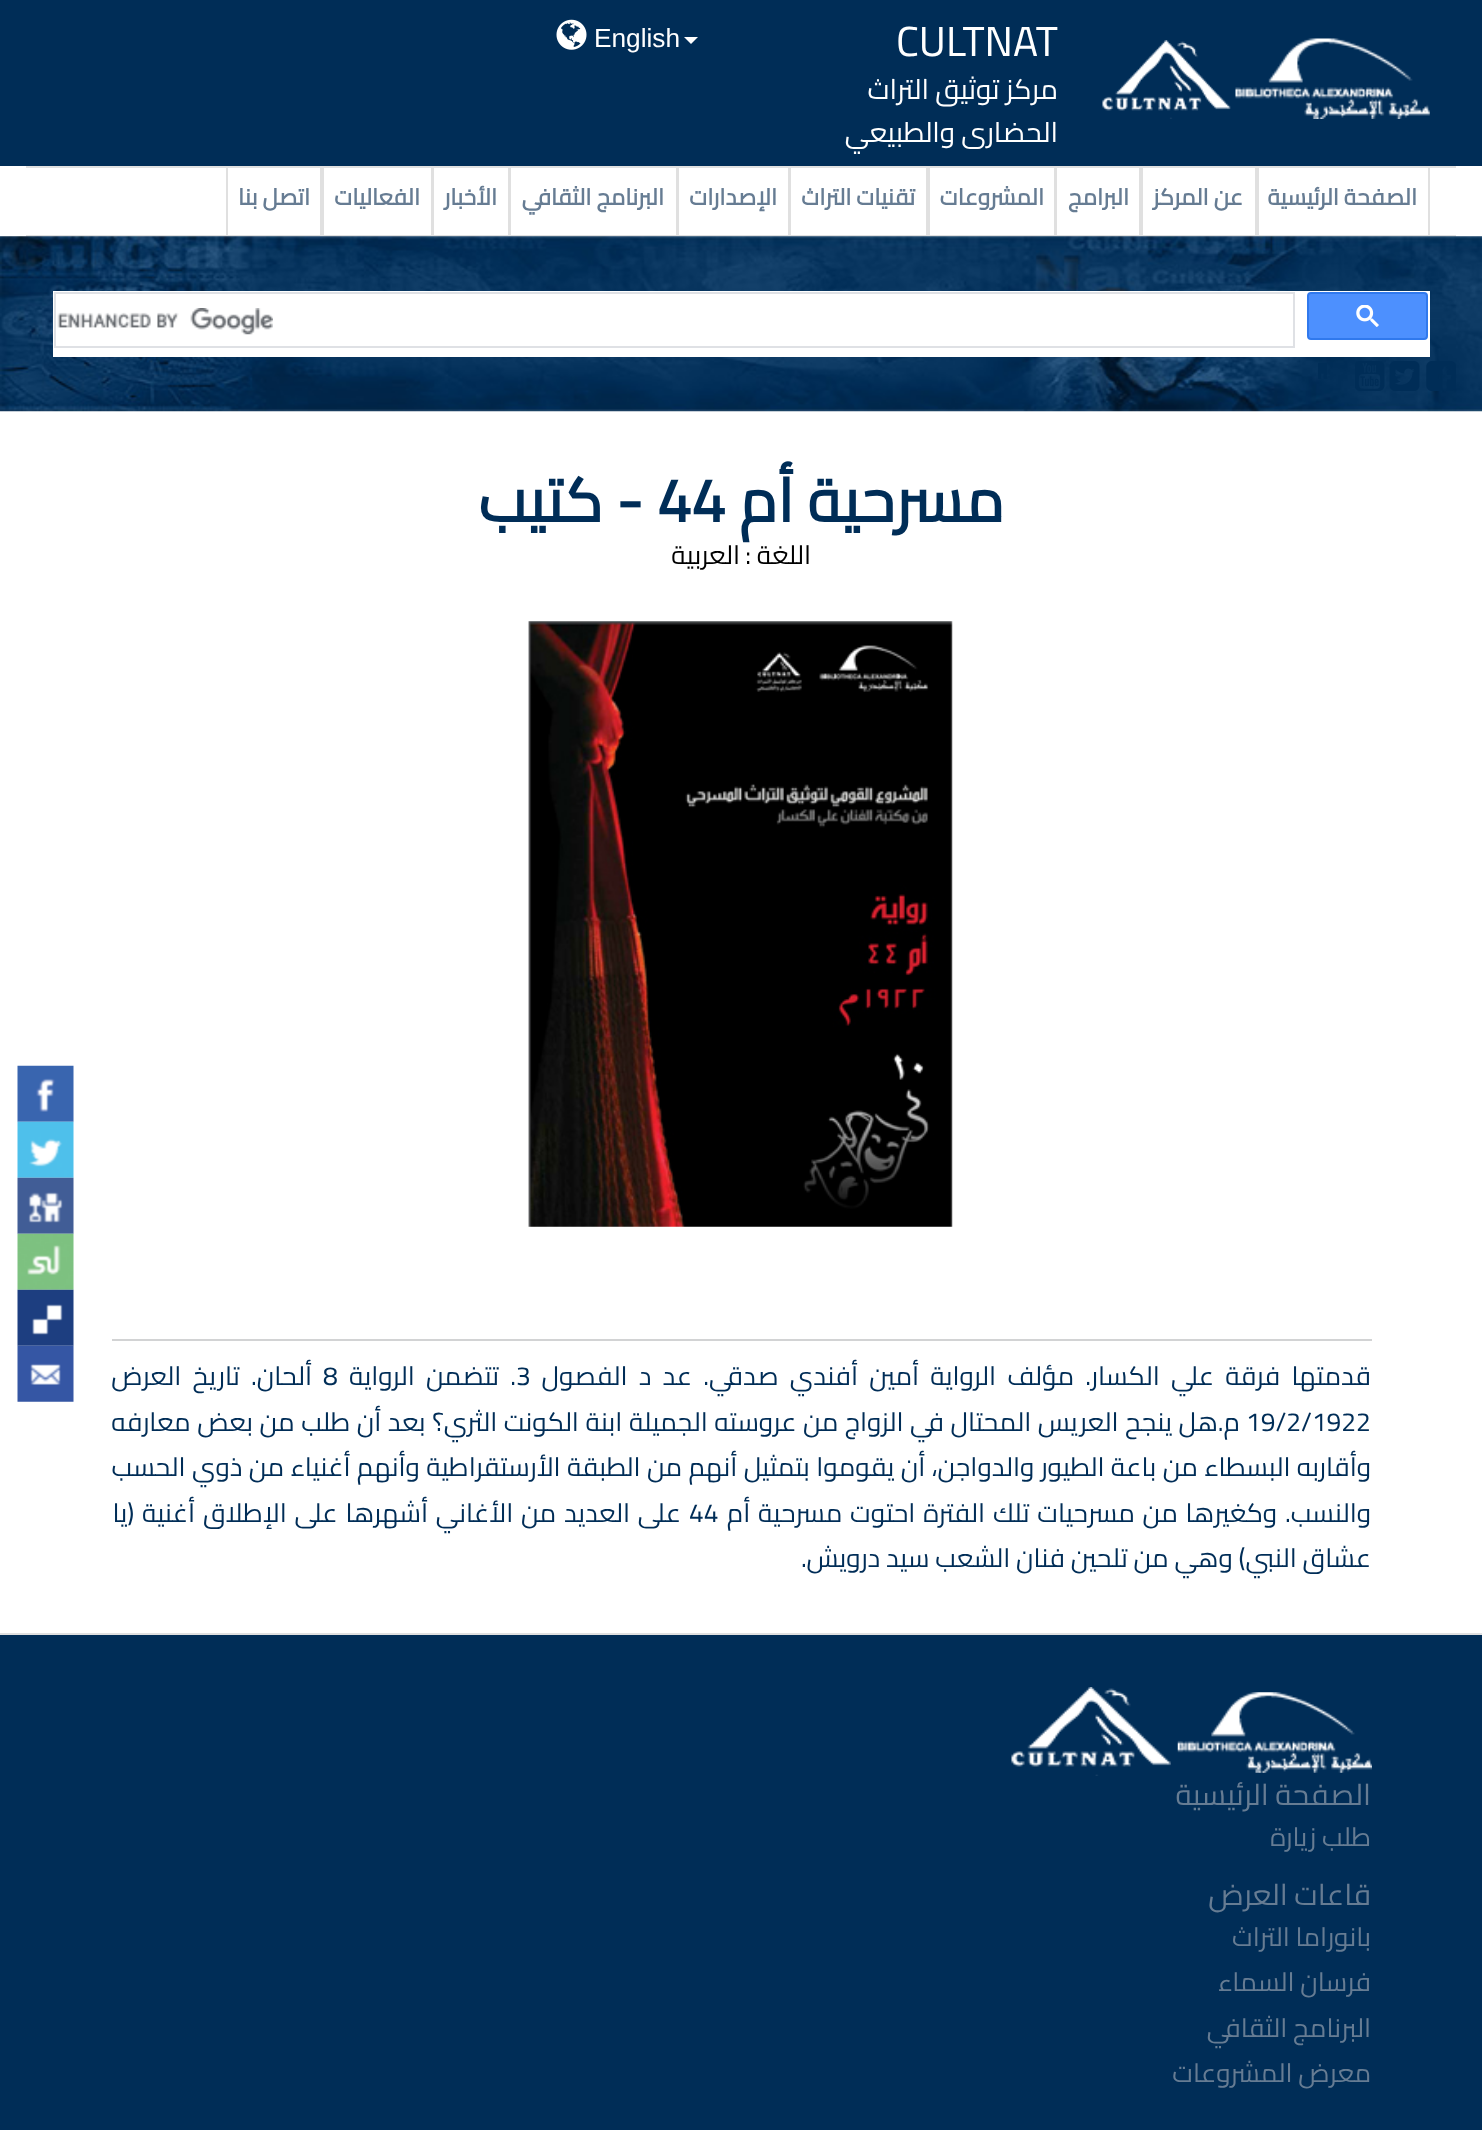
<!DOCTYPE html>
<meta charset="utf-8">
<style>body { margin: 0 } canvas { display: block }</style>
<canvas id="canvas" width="1482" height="2130"></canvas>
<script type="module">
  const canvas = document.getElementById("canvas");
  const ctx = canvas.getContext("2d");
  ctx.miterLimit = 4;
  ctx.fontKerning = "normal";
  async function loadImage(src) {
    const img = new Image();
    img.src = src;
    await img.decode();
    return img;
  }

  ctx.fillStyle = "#ffffff";
  ctx.fillRect(0, 0, 1482, 2130);
  ctx.fillStyle = "#002d57";
  ctx.fillRect(0, 0, 1482, 166);
  ctx.drawImage(await loadImage("img1.png"), 1235, 38, 195, 81);
  ctx.drawImage(await loadImage("img2.png"), 1102, 40, 129, 79);
  ctx.font = "42px Cairo";
  ctx.fillStyle = "#ffffff";
  ctx.fillText("CULTNAT", 896, 56);
  ctx.direction = "rtl";
  ctx.font = "28px Cairo";
  ctx.fillText("مركز توثيق التراث", 1058, 99);
  ctx.fillText("الحضارى والطبيعي", 1058, 142);
  ctx.beginPath();
  ctx.moveTo(684, 37);
  ctx.lineTo(698, 37);
  ctx.lineTo(691, 44);
  ctx.closePath();
  ctx.fill();
  ctx.direction = "ltr";
  ctx.font = "26.25px Liberation Sans";
  ctx.fillText("English", 594, 47);
  ctx.drawImage(await loadImage("img3.png"), 556, 19, 31, 31);
  ctx.fillStyle = "#e0e0e0";
  ctx.fillRect(26, 166, 1430, 2);
  ctx.fillRect(26, 235, 1430, 2);
  ctx.fillRect(1428, 168, 2, 67);
  ctx.fillRect(1255, 168, 4, 67);
  ctx.direction = "rtl";
  ctx.font = "bold 22.75px Cairo";
  ctx.fillStyle = "#667c93";
  ctx.fillText("الصفحة الرئيسية", 1417, 205);
  ctx.fillStyle = "#e0e0e0";
  ctx.fillRect(1139, 168, 4, 67);
  ctx.fillStyle = "#667c93";
  ctx.fillText("عن المركز", 1243, 205);
  ctx.fillStyle = "#e0e0e0";
  ctx.fillRect(1054, 168, 3, 67);
  ctx.fillStyle = "#667c93";
  ctx.fillText("البرامج", 1129, 205);
  ctx.fillStyle = "#e0e0e0";
  ctx.fillRect(926, 168, 4, 67);
  ctx.fillStyle = "#667c93";
  ctx.fillText("المشروعات", 1044, 205);
  ctx.fillStyle = "#e0e0e0";
  ctx.fillRect(788, 168, 3, 67);
  ctx.fillStyle = "#667c93";
  ctx.fillText("تقنيات التراث", 915, 205);
  ctx.fillStyle = "#e0e0e0";
  ctx.fillRect(676, 168, 3, 67);
  ctx.fillStyle = "#667c93";
  ctx.fillText("الإصدارات", 777, 205);
  ctx.fillStyle = "#e0e0e0";
  ctx.fillRect(508, 168, 3, 67);
  ctx.fillStyle = "#667c93";
  ctx.fillText("البرنامج الثقافي", 664, 205);
  ctx.fillStyle = "#e0e0e0";
  ctx.fillRect(431, 168, 3, 67);
  ctx.fillStyle = "#667c93";
  ctx.fillText("الأخبار", 497, 205);
  ctx.fillStyle = "#e0e0e0";
  ctx.fillRect(320, 168, 4, 67);
  ctx.fillStyle = "#667c93";
  ctx.fillText("الفعاليات", 420, 205);
  ctx.fillStyle = "#e0e0e0";
  ctx.fillRect(226, 168, 2, 67);
  ctx.fillStyle = "#667c93";
  ctx.fillText("اتصل بنا", 310, 205);
  ctx.drawImage(await loadImage("img10.png"), 0, 236, 1482, 176);
  ctx.fillStyle = "#ffffff";
  ctx.fillRect(53, 291, 1377, 66);
  ctx.fillStyle = "#4d90fe";
  ctx.beginPath();
  ctx.roundRect(1308, 293, 119, 46, 3);
  ctx.fill();
  ctx.strokeStyle = "#3079ed";
  ctx.lineWidth = 2;
  ctx.stroke();
  ctx.drawImage(await loadImage("img4.png"), 1356, 305, 23, 22);
  ctx.strokeStyle = "#dfe1e5";
  ctx.strokeRect(55, 293, 1239, 54);
  ctx.drawImage(await loadImage("img5.png"), 57, 308, 216, 27);
  ctx.drawImage(await loadImage("img6.png"), 1426, 361, 30, 30);
  ctx.drawImage(await loadImage("img7.png"), 1389, 361, 31, 30);
  ctx.drawImage(await loadImage("img8.png"), 1355, 361, 30, 30);
  ctx.drawImage(await loadImage("img9.png"), 1318, 363, 9, 16);
  ctx.font = "bold 61.25px Cairo";
  ctx.fillStyle = "#002d57";
  ctx.fillText("مسرحية أم", 1004, 522);
  ctx.direction = "ltr";
  ctx.fillText("44", 657, 522);
  ctx.direction = "rtl";
  ctx.fillText("- كتيب", 643, 522);
  ctx.font = "26.25px Cairo";
  ctx.fillStyle = "#000000";
  ctx.fillText("اللغة :", 811, 564);
  ctx.fillText("العربية", 740, 564);
  ctx.drawImage(await loadImage("img11.png"), 528, 621, 425, 606);
  ctx.fillStyle = "#d2d3d4";
  ctx.fillRect(112, 1339, 1260, 2);
  ctx.wordSpacing = "5.4px";
  ctx.fillStyle = "#002d57";
  ctx.fillText("قدمتها فرقة علي الكسار. مؤلف الرواية أمين أفندي صدقي. عد د الفصول", 1371, 1385);
  ctx.wordSpacing = "0px";
  ctx.direction = "ltr";
  ctx.fillText("3", 516, 1385);
  ctx.wordSpacing = "5.4px";
  ctx.direction = "rtl";
  ctx.fillText(". تتضمن الرواية", 516, 1385);
  ctx.wordSpacing = "0px";
  ctx.direction = "ltr";
  ctx.fillText("8", 323, 1385);
  ctx.wordSpacing = "5.4px";
  ctx.direction = "rtl";
  ctx.fillText("ألحان. تاريخ العرض", 312, 1385);
  ctx.wordSpacing = "0px";
  ctx.direction = "ltr";
  ctx.fillText("19/2/1922", 1246, 1431);
  ctx.wordSpacing = "0.75px";
  ctx.direction = "rtl";
  ctx.fillText("م.هل ينجح العريس المحتال في الزواج من عروسته الجميلة ابنة الكونت الثري؟ بعد أن طلب من بعض معارفه", 1240, 1431);
  ctx.wordSpacing = "0.6px";
  ctx.fillText("وأقاربه البسطاء من باعة الطيور والدواجن، أن يقوموا بتمثيل أنهم من الطبقة الأرستقراطية وأنهم أغنياء من ذوي الحسب", 1371, 1476);
  ctx.wordSpacing = "2px";
  ctx.fillText("والنسب. وكغيرها من مسرحيات تلك الفترة احتوت مسرحية أم", 1371, 1522);
  ctx.wordSpacing = "0px";
  ctx.direction = "ltr";
  ctx.fillText("44", 689, 1522);
  ctx.wordSpacing = "2px";
  ctx.direction = "rtl";
  ctx.fillText("على العديد من الأغاني أشهرها على الإطلاق أغنية (يا", 681, 1522);
  ctx.wordSpacing = "0px";
  ctx.fillText("عشاق النبي) وهي من تلحين فنان الشعب سيد درويش.", 1371, 1567);
  ctx.drawImage(await loadImage("img12.png"), 17, 1065, 57, 57);
  ctx.drawImage(await loadImage("img13.png"), 17, 1121, 57, 57);
  ctx.drawImage(await loadImage("img14.png"), 17, 1177, 57, 57);
  ctx.drawImage(await loadImage("img15.png"), 17, 1233, 57, 57);
  ctx.drawImage(await loadImage("img16.png"), 17, 1289, 57, 57);
  ctx.drawImage(await loadImage("img17.png"), 17, 1345, 57, 57);
  ctx.fillStyle = "#e0e0e0";
  ctx.fillRect(0, 1633, 1482, 2);
  ctx.fillStyle = "#002d57";
  ctx.fillRect(0, 1635, 1482, 495);
  ctx.drawImage(await loadImage("img18.png"), 1177, 1692, 195, 81);
  ctx.drawImage(await loadImage("img19.png"), 1011, 1687, 160, 89);
  ctx.font = "29.75px Cairo";
  ctx.fillStyle = "#667c93";
  ctx.fillText("الصفحة الرئيسية", 1371, 1805);
  ctx.font = "26.25px Cairo";
  ctx.fillText("طلب زيارة", 1371, 1846);
  ctx.font = "29.75px Cairo";
  ctx.fillText("قاعات العرض", 1371, 1905);
  ctx.font = "26.25px Cairo";
  ctx.fillText("بانوراما التراث", 1371, 1946);
  ctx.fillText("فرسان السماء", 1371, 1991);
  ctx.fillText("البرنامج الثقافي", 1371, 2037);
  ctx.fillText("معرض المشروعات", 1371, 2082);
</script>
